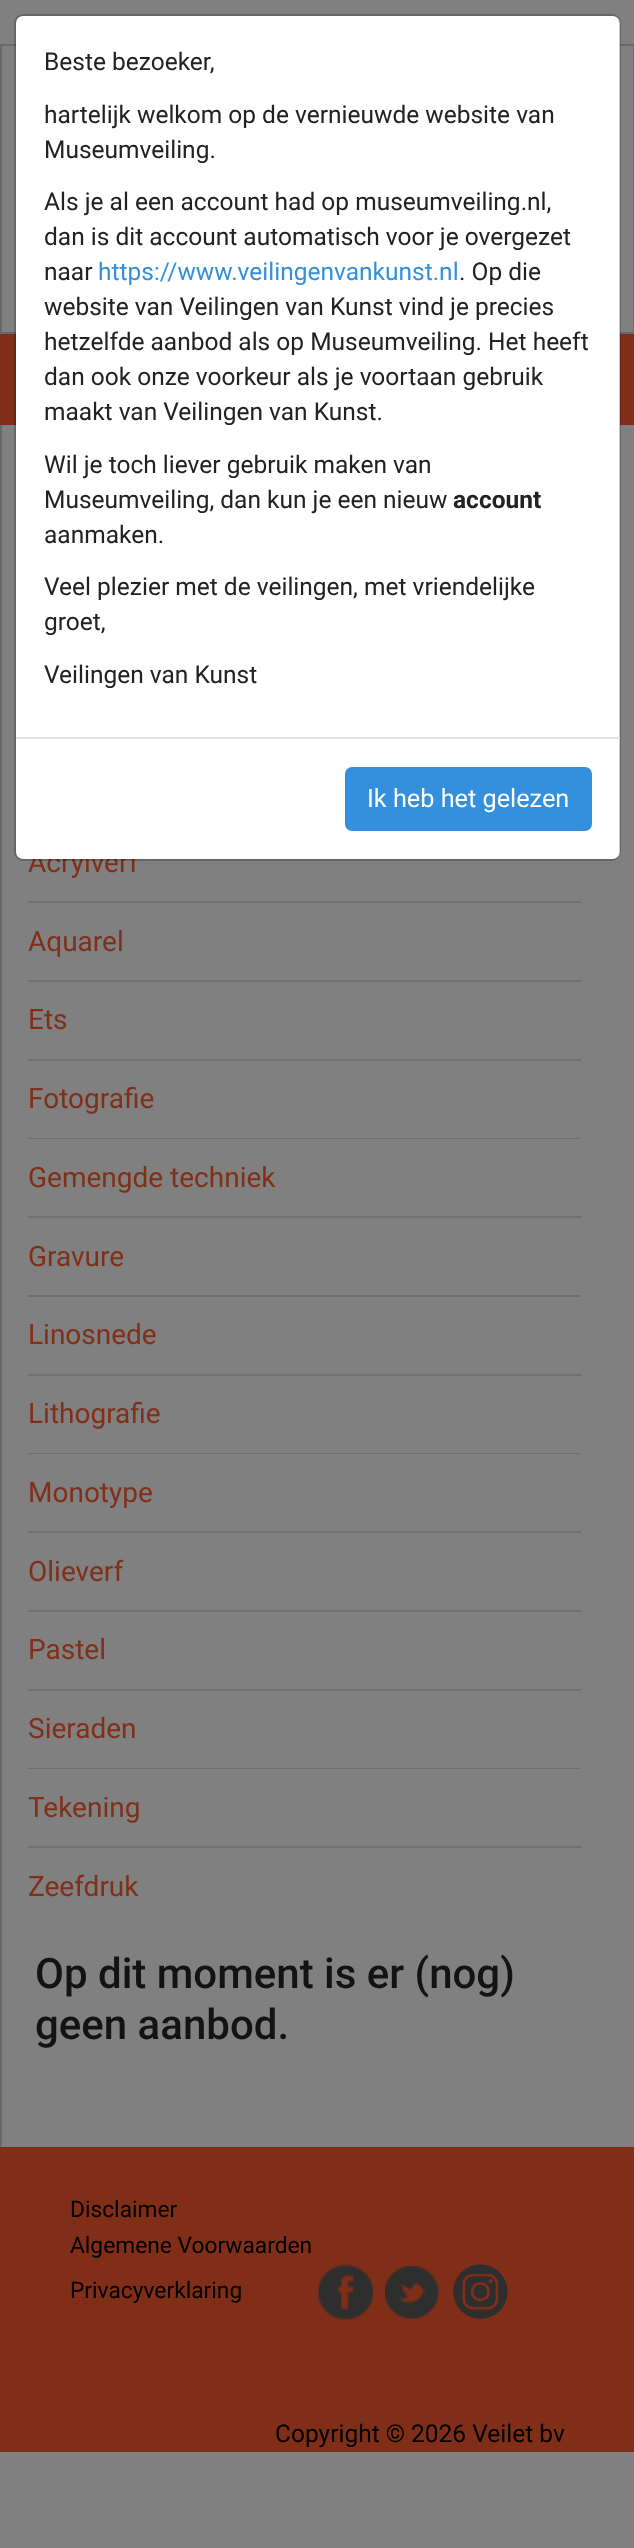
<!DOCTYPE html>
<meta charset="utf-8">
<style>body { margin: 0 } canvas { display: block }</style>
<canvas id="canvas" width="634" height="2548"></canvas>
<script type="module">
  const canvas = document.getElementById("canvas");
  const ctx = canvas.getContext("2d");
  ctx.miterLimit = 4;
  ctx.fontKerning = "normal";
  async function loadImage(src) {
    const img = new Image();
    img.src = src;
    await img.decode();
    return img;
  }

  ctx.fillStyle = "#808080";
  ctx.fillRect(0, 0, 634, 2548);
  ctx.strokeStyle = "#66696d";
  ctx.lineWidth = 2;
  ctx.strokeRect(1, 45, 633, 288);
  ctx.fillStyle = "#802e18";
  ctx.fillRect(0, 334, 634, 91);
  ctx.font = "28px Roboto";
  ctx.fillStyle = "#802f19";
  ctx.fillText("Acrylverf", 28, 872);
  ctx.fillStyle = "#ffffff";
  ctx.beginPath();
  ctx.roundRect(16, 16, 604, 843, 7);
  ctx.fill();
  ctx.beginPath();
  ctx.roundRect(15, 15, 605, 845, 8);
  ctx.strokeStyle = "rgba(0, 0, 0, 0.2)";
  ctx.stroke();
  ctx.font = "24.5px Roboto";
  ctx.fillStyle = "#222222";
  ctx.fillText("Beste bezoeker,", 44, 70);
  ctx.fillText("hartelijk welkom op de vernieuwde website van", 44, 123);
  ctx.fillText("Museumveiling.", 44, 158);
  ctx.fillText("Als je al een account had op museumveiling.nl,", 44, 210);
  ctx.fillText("dan is dit account automatisch voor je overgezet", 44, 245);
  ctx.fillText("naar", 44, 280);
  ctx.fillStyle = "#3490dc";
  ctx.fillText("https://www.veilingenvankunst.nl", 98, 280);
  ctx.fillStyle = "#222222";
  ctx.fillText(". Op die", 459, 280);
  ctx.fillText("website van Veilingen van Kunst vind je precies", 44, 315);
  ctx.fillText("hetzelfde aanbod als op Museumveiling. Het heeft", 44, 350);
  ctx.fillText("dan ook onze voorkeur als je voortaan gebruik", 44, 385);
  ctx.fillText("maakt van Veilingen van Kunst.", 44, 420);
  ctx.fillText("Wil je toch liever gebruik maken van", 44, 473);
  ctx.fillText("Museumveiling, dan kun je een nieuw", 44, 508);
  ctx.font = "bold 24.5px Roboto";
  ctx.fillText("account", 453, 508);
  ctx.font = "24.5px Roboto";
  ctx.fillText("aanmaken.", 44, 543);
  ctx.fillText("Veel plezier met de veilingen, met vriendelijke", 44, 595);
  ctx.fillText("groet,", 44, 630);
  ctx.fillText("Veilingen van Kunst", 44, 683);
  ctx.fillStyle = "#dee2e6";
  ctx.fillRect(16, 737, 604, 2);
  ctx.fillStyle = "#3490dc";
  ctx.beginPath();
  ctx.roundRect(346, 768, 245, 62, 6);
  ctx.fill();
  ctx.strokeStyle = "#3490dc";
  ctx.stroke();
  ctx.font = "25.25px Roboto";
  ctx.fillStyle = "#ffffff";
  ctx.fillText("Ik heb het gelezen", 367, 807);
  ctx.fillStyle = "#66696d";
  ctx.fillRect(0, 425, 2, 1722);
  ctx.fillStyle = "#707070";
  ctx.fillRect(28, 901, 553, 2);
  ctx.fillRect(28, 980, 553, 2);
  ctx.font = "28px Roboto";
  ctx.fillStyle = "#802f19";
  ctx.fillText("Aquarel", 28, 951);
  ctx.fillStyle = "#707070";
  ctx.fillRect(28, 1059, 553, 2);
  ctx.fillStyle = "#802f19";
  ctx.fillText("Ets", 28, 1029);
  ctx.fillStyle = "#707070";
  ctx.fillRect(28, 1138, 553, 1);
  ctx.fillStyle = "#802f19";
  ctx.fillText("Fotografie", 28, 1108);
  ctx.fillStyle = "#707070";
  ctx.fillRect(28, 1216, 553, 2);
  ctx.fillStyle = "#802f19";
  ctx.fillText("Gemengde techniek", 28, 1187);
  ctx.fillStyle = "#707070";
  ctx.fillRect(28, 1295, 553, 2);
  ctx.fillStyle = "#802f19";
  ctx.fillText("Gravure", 28, 1266);
  ctx.fillStyle = "#707070";
  ctx.fillRect(28, 1374, 553, 2);
  ctx.fillStyle = "#802f19";
  ctx.fillText("Linosnede", 28, 1344);
  ctx.fillStyle = "#707070";
  ctx.fillRect(28, 1453, 553, 1);
  ctx.fillStyle = "#802f19";
  ctx.fillText("Lithografie", 28, 1423);
  ctx.fillStyle = "#707070";
  ctx.fillRect(28, 1531, 553, 2);
  ctx.fillStyle = "#802f19";
  ctx.fillText("Monotype", 28, 1502);
  ctx.fillStyle = "#707070";
  ctx.fillRect(28, 1610, 553, 2);
  ctx.fillStyle = "#802f19";
  ctx.fillText("Olieverf", 28, 1581);
  ctx.fillStyle = "#707070";
  ctx.fillRect(28, 1689, 553, 2);
  ctx.fillStyle = "#802f19";
  ctx.fillText("Pastel", 28, 1659);
  ctx.fillStyle = "#707070";
  ctx.fillRect(28, 1768, 553, 1);
  ctx.fillStyle = "#802f19";
  ctx.fillText("Sieraden", 28, 1738);
  ctx.fillStyle = "#707070";
  ctx.fillRect(28, 1846, 553, 2);
  ctx.fillStyle = "#802f19";
  ctx.fillText("Tekening", 28, 1817);
  ctx.fillText("Zeefdruk", 28, 1896);
  ctx.font = "500 42px Roboto";
  ctx.fillStyle = "#111315";
  ctx.fillText("Op dit moment is er (nog)", 35, 1988);
  ctx.fillText("geen aanbod.", 35, 2039);
  ctx.fillStyle = "#802e18";
  ctx.fillRect(0, 2147, 634, 305);
  ctx.font = "22.75px Roboto";
  ctx.fillStyle = "#000000";
  ctx.fillText("Disclaimer", 70, 2217);
  ctx.fillText("Algemene Voorwaarden", 70, 2253);
  ctx.fillText("Privacyverklaring", 70, 2298);
  ctx.drawImage(await loadImage("img1.png"), 318, 2264, 55, 57);
  ctx.drawImage(await loadImage("img2.png"), 385, 2266, 55, 53);
  ctx.drawImage(await loadImage("img3.png"), 453, 2264, 55, 55);
  ctx.font = "24.5px Roboto";
  ctx.fillText("Copyright © 2026 Veilet bv", 275, 2442);
</script>
